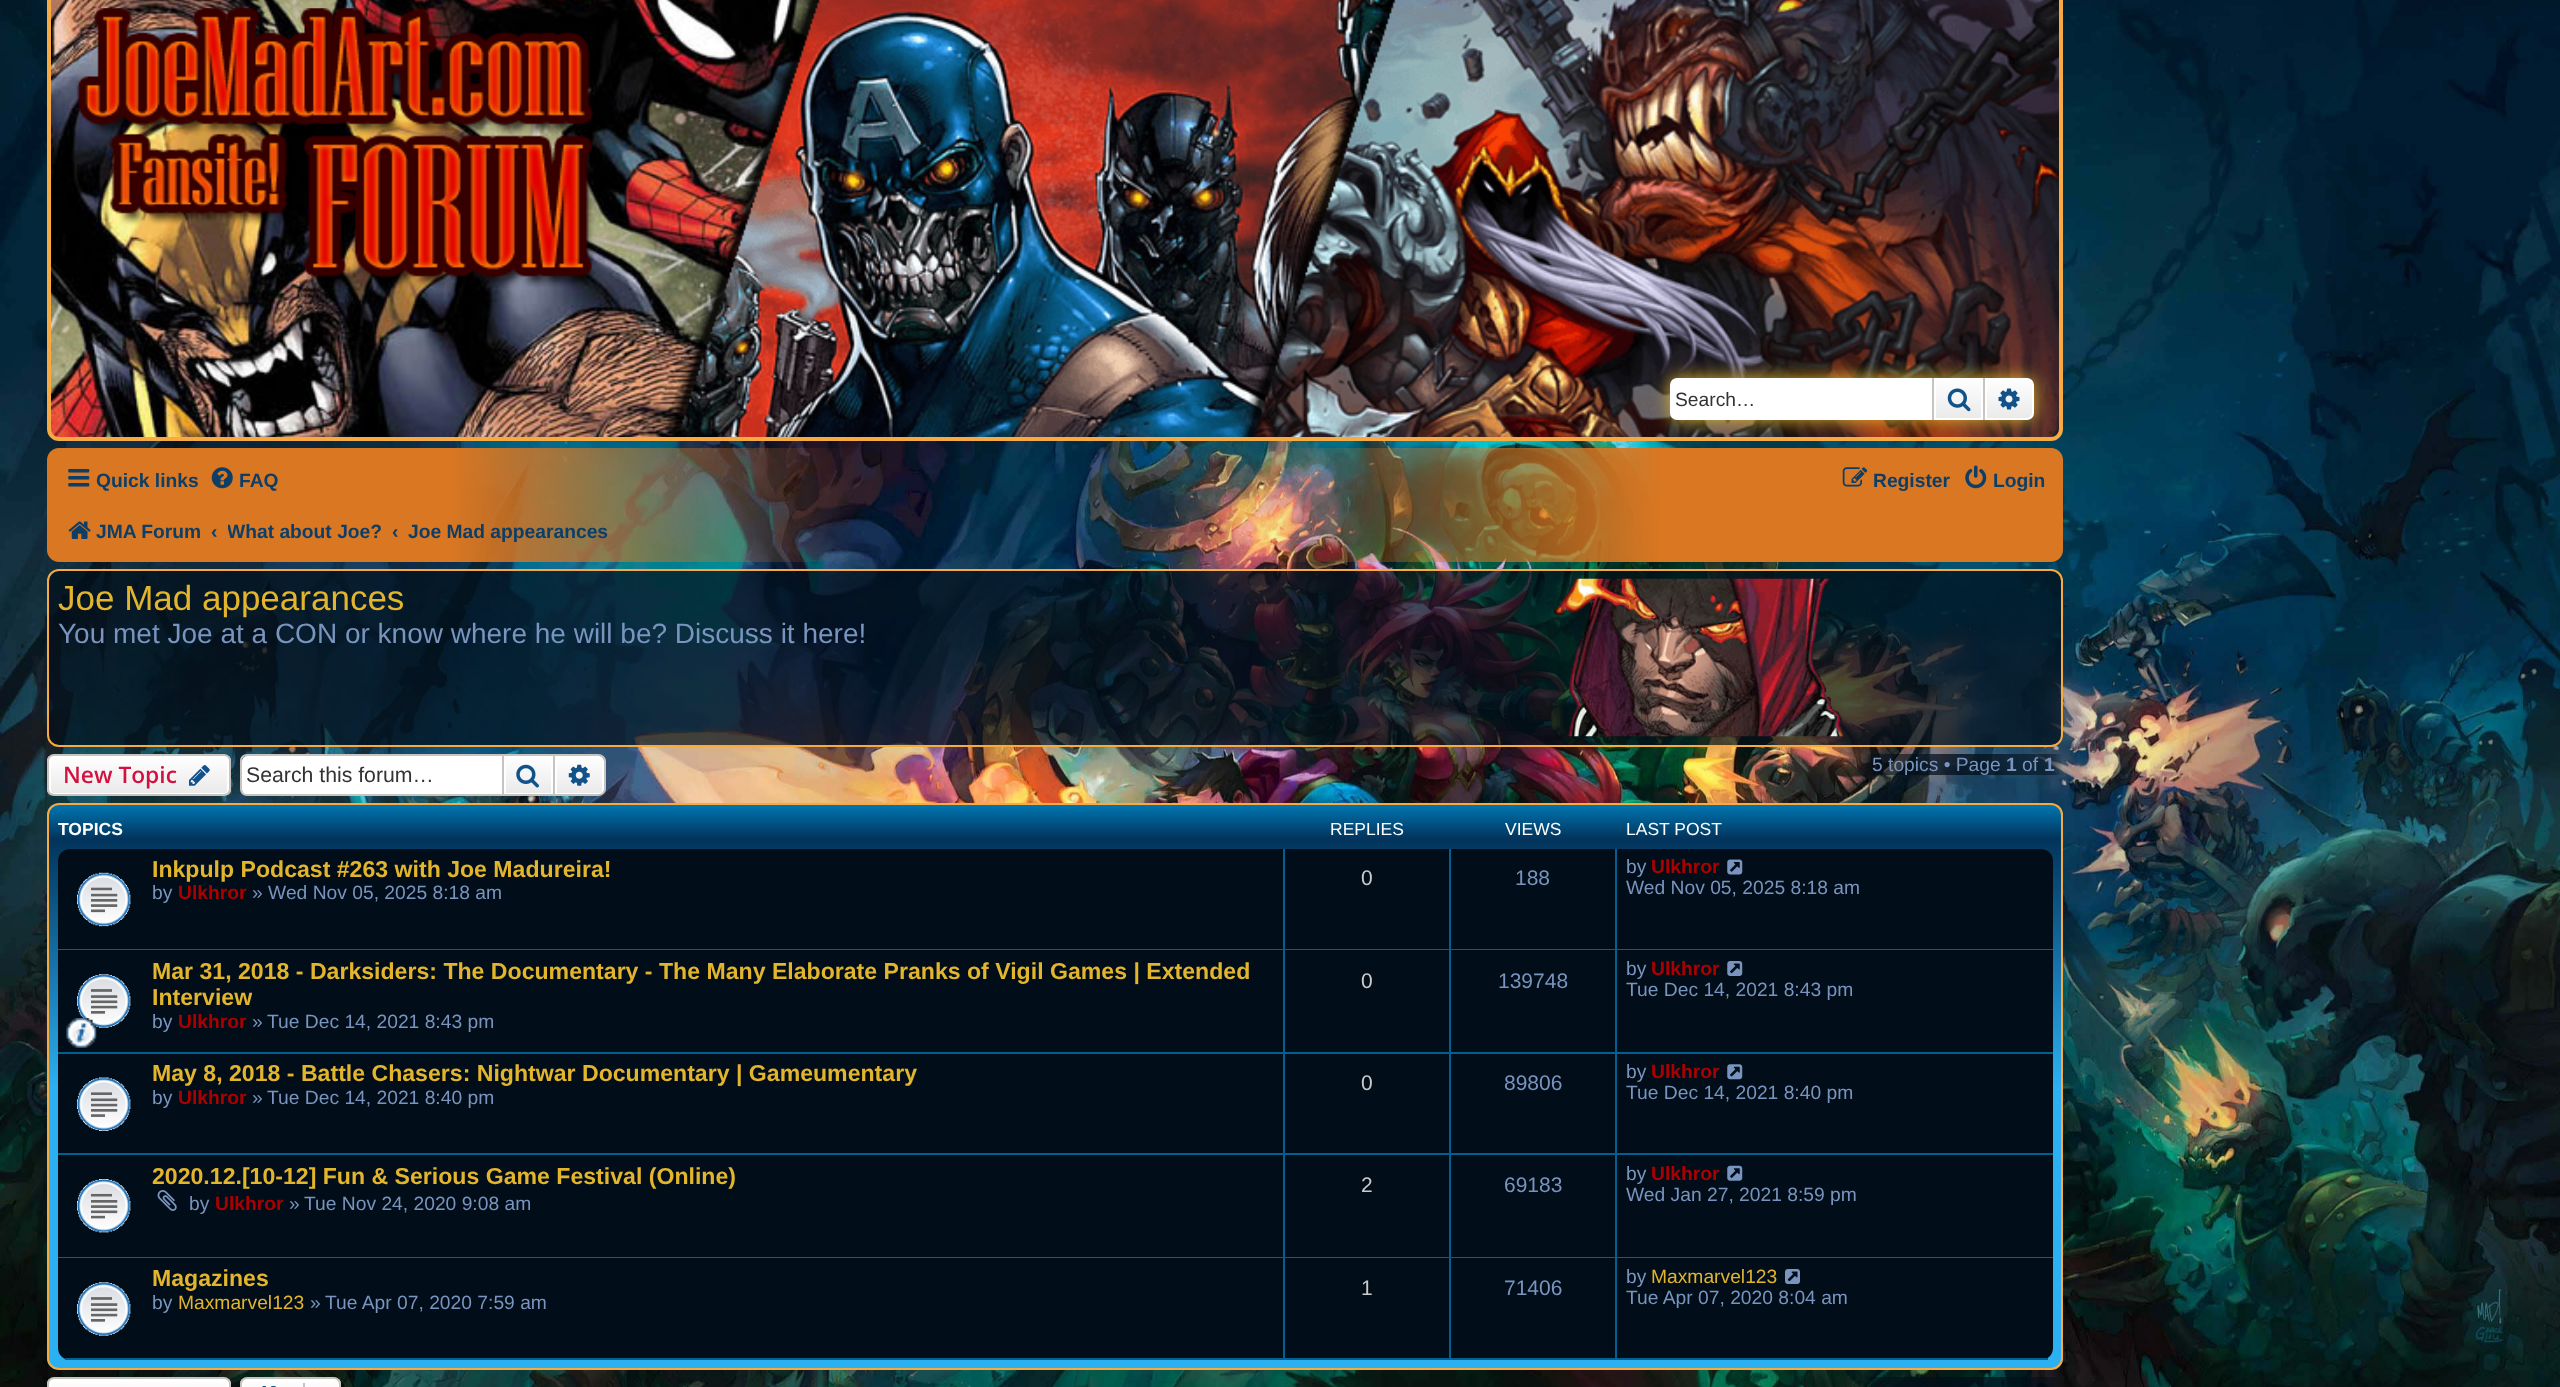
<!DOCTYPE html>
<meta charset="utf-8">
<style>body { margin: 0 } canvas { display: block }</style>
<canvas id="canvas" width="2560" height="1387"></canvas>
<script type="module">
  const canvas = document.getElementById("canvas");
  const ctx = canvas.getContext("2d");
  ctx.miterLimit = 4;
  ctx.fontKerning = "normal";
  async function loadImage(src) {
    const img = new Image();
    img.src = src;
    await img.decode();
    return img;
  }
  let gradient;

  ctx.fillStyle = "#ffffff";
  ctx.fillRect(0, 0, 2560, 1387);
  ctx.drawImage(await loadImage("img1.png"), 0, 0, 2560, 1387);
  ctx.drawImage(await loadImage("img2.png"), 50, 0, 2010, 441);
  ctx.beginPath();
  ctx.roundRect(49, -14, 2012, 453, 10);
  ctx.strokeStyle = "#f7aa41";
  ctx.lineWidth = 4;
  ctx.stroke();
  ctx.drawImage(await loadImage("img3.png"), 77, 8, 519, 280);
  ctx.fillStyle = "#e2b52d";
  ctx.filter = "blur(9px)";
  ctx.beginPath();
  ctx.roundRect(1670, 378, 364, 42, 7);
  ctx.fill();
  ctx.filter = "none";
  ctx.fillStyle = "#ffffff";
  ctx.beginPath();
  ctx.roundRect(1670, 378, 262, 42, [7, 0, 0, 7]);
  ctx.fill();
  ctx.font = "19.25px Liberation Sans";
  ctx.fillStyle = "#333333";
  ctx.fillText("Search…", 1675, 406);
  gradient = ctx.createLinearGradient(1958, 378, 1958, 420);
  gradient.addColorStop(0, "#ffffff");
  gradient.addColorStop(1, "#e9e9e9");
  ctx.fillStyle = gradient;
  ctx.fillRect(1936, 380, 45, 38);
  ctx.strokeStyle = "#ffffff";
  ctx.lineWidth = 2;
  ctx.strokeRect(1935, 379, 47, 40);
  ctx.fillStyle = "#c7c3bf";
  ctx.fillRect(1983, 378, 2, 42);
  ctx.fillRect(1932, 378, 2, 42);
  ctx.drawImage(await loadImage("img4.png"), 1947, 388, 24, 24);
  gradient = ctx.createLinearGradient(2009, 378, 2009, 420);
  gradient.addColorStop(0, "#ffffff");
  gradient.addColorStop(1, "#e9e9e9");
  ctx.fillStyle = gradient;
  ctx.beginPath();
  ctx.roundRect(1986, 379, 47, 40, [0, 6, 6, 0]);
  ctx.fill();
  ctx.stroke();
  ctx.drawImage(await loadImage("img5.png"), 1998, 388, 22, 22);
  ctx.drawImage(await loadImage("img6.png"), 68, 469, 22, 18);
  ctx.font = "bold 19.25px Liberation Sans";
  ctx.fillStyle = "#0c3e68";
  ctx.fillText("Quick links", 96, 487);
  ctx.drawImage(await loadImage("img7.png"), 211, 467, 22, 22);
  ctx.fillText("FAQ", 239, 487);
  ctx.drawImage(await loadImage("img8.png"), 1842, 467, 26, 20);
  ctx.fillText("Register", 1873, 487);
  ctx.drawImage(await loadImage("img9.png"), 1965, 465, 22, 24);
  ctx.fillText("Login", 1993, 487);
  ctx.drawImage(await loadImage("img10.png"), 68, 521, 23, 18);
  ctx.fillText("JMA Forum", 96, 538);
  ctx.fillText("‹", 211, 538);
  ctx.save();
  ctx.beginPath();
  ctx.rect(228, 511, 154, 42);
  ctx.clip();
  ctx.fillText("What about Joe?", 227, 538);
  ctx.restore();
  ctx.fillText("‹", 392, 538);
  ctx.fillText("Joe Mad appearances", 408, 538);
  ctx.fillStyle = "rgba(1, 14, 25, 0.7)";
  ctx.beginPath();
  ctx.roundRect(48, 570, 2014, 176, 11);
  ctx.fill();
  ctx.strokeStyle = "#f7aa41";
  ctx.stroke();
  ctx.drawImage(await loadImage("img11.png"), 1553, 578, 291, 159);
  ctx.font = "35px Liberation Sans";
  ctx.fillStyle = "#e2b52d";
  ctx.fillText("Joe Mad appearances", 58, 610);
  ctx.font = "28px Liberation Sans";
  ctx.fillStyle = "#7994be";
  ctx.fillText("You met Joe at a CON or know where he will be? Discuss it here!", 58, 643);
  ctx.save();
  ctx.beginPath();
  ctx.roundRect(47, 754, 184, 42, 7);
  ctx.clip();
  gradient = ctx.createLinearGradient(139, 756, 139, 795);
  gradient.addColorStop(0, "#ffffff");
  gradient.addColorStop(1, "#e9e9e9");
  ctx.fillStyle = gradient;
  ctx.fillRect(47, 756, 184, 39);
  ctx.restore();
  ctx.beginPath();
  ctx.roundRect(50, 757, 178, 37, 4);
  ctx.strokeStyle = "#ffffff";
  ctx.stroke();
  ctx.beginPath();
  ctx.roundRect(48, 755, 182, 40, 6);
  ctx.strokeStyle = "#c7c3bf";
  ctx.stroke();
  ctx.font = "600 22.75px Open Sans";
  ctx.fillStyle = "#d31141";
  ctx.fillText("New Topic", 63, 783);
  ctx.drawImage(await loadImage("img12.png"), 189, 765, 21, 21);
  ctx.fillStyle = "#ffffff";
  ctx.beginPath();
  ctx.roundRect(242, 756, 260, 39, [5, 0, 0, 5]);
  ctx.fill();
  ctx.fillStyle = "#c7c3bf";
  ctx.beginPath();
  ctx.moveTo(247, 754);
  ctx.lineTo(502, 754);
  ctx.lineTo(502, 796);
  ctx.lineTo(247, 796);
  ctx.bezierCurveTo(243, 796, 240, 793, 240, 789);
  ctx.lineTo(240, 761);
  ctx.bezierCurveTo(240, 757, 243, 754, 247, 754);
  ctx.closePath();
  ctx.moveTo(247, 756);
  ctx.lineTo(502, 756);
  ctx.lineTo(502, 794);
  ctx.lineTo(247, 794);
  ctx.bezierCurveTo(244, 794, 242, 792, 242, 789);
  ctx.lineTo(242, 761);
  ctx.bezierCurveTo(242, 758, 244, 756, 247, 756);
  ctx.closePath();
  ctx.fill("evenodd");
  ctx.font = "21.25px Liberation Sans";
  ctx.fillStyle = "#333333";
  ctx.fillText("Search this forum…", 246, 782);
  gradient = ctx.createLinearGradient(529, 756, 529, 795);
  gradient.addColorStop(0, "#ffffff");
  gradient.addColorStop(1, "#e9e9e9");
  ctx.fillStyle = gradient;
  ctx.fillRect(506, 758, 45, 35);
  ctx.strokeStyle = "#ffffff";
  ctx.strokeRect(505, 757, 47, 37);
  ctx.strokeStyle = "#c7c3bf";
  ctx.strokeRect(503, 755, 51, 40);
  ctx.drawImage(await loadImage("img13.png"), 516, 764, 23, 24);
  gradient = ctx.createLinearGradient(579, 756, 579, 795);
  gradient.addColorStop(0, "#ffffff");
  gradient.addColorStop(1, "#e9e9e9");
  ctx.fillStyle = gradient;
  ctx.beginPath();
  ctx.roundRect(556, 757, 47, 37, [0, 4, 4, 0]);
  ctx.fill();
  ctx.strokeStyle = "#ffffff";
  ctx.stroke();
  ctx.fillStyle = "#c7c3bf";
  ctx.beginPath();
  ctx.moveTo(555, 754);
  ctx.lineTo(598, 754);
  ctx.bezierCurveTo(602, 754, 606, 757, 606, 761);
  ctx.lineTo(606, 789);
  ctx.bezierCurveTo(606, 793, 602, 796, 598, 796);
  ctx.lineTo(555, 796);
  ctx.closePath();
  ctx.moveTo(555, 756);
  ctx.lineTo(598, 756);
  ctx.bezierCurveTo(601, 756, 604, 758, 604, 761);
  ctx.lineTo(604, 789);
  ctx.bezierCurveTo(604, 792, 601, 794, 598, 794);
  ctx.lineTo(555, 794);
  ctx.closePath();
  ctx.fill("evenodd");
  ctx.drawImage(await loadImage("img14.png"), 568, 764, 22, 22);
  ctx.font = "19.25px Liberation Sans";
  ctx.fillStyle = "#7994be";
  ctx.fillText("5 topics • Page", 1872, 771);
  ctx.font = "bold 19.25px Liberation Sans";
  ctx.fillText("1", 2006, 771);
  ctx.font = "19.25px Liberation Sans";
  ctx.fillText("of", 2022, 771);
  ctx.font = "bold 19.25px Liberation Sans";
  ctx.fillText("1", 2044, 771);
  ctx.save();
  ctx.beginPath();
  ctx.roundRect(47, 803, 2016, 567, 12);
  ctx.clip();
  gradient = ctx.createLinearGradient(1055, 805, 1055, 1369);
  gradient.addColorStop(0, "#0076b1");
  gradient.addColorStop(0.06, "#02345c");
  gradient.addColorStop(0.5, "#2bb0f2");
  gradient.addColorStop(1, "#2bb0f2");
  ctx.fillStyle = gradient;
  ctx.fillRect(47, 805, 2016, 564);
  ctx.restore();
  ctx.beginPath();
  ctx.roundRect(48, 804, 2014, 565, 11);
  ctx.strokeStyle = "#f7aa41";
  ctx.stroke();
  ctx.font = "bold 17.5px Liberation Sans";
  ctx.fillStyle = "#ffffff";
  ctx.fillText("TOPICS", 58, 835);
  ctx.font = "17.5px Liberation Sans";
  ctx.fillText("REPLIES", 1330, 835);
  ctx.fillText("VIEWS", 1505, 835);
  ctx.fillText("LAST POST", 1626, 835);
  ctx.fillStyle = "#010e19";
  ctx.beginPath();
  ctx.roundRect(58, 849, 1995, 101, [12, 12, 0, 0]);
  ctx.fill();
  ctx.fillStyle = "#00608f";
  ctx.fillRect(58, 949, 1995, 1);
  ctx.drawImage(await loadImage("img15.png"), 77, 872, 54, 55);
  ctx.font = "bold 23.1px Liberation Sans";
  ctx.fillStyle = "#e2b52d";
  ctx.fillText("Inkpulp Podcast #263 with Joe Madureira!", 152, 877);
  ctx.font = "19.25px Liberation Sans";
  ctx.fillStyle = "#7994be";
  ctx.fillText("by", 152, 899);
  ctx.font = "bold 19.25px Liberation Sans";
  ctx.fillStyle = "#aa0000";
  ctx.fillText("Ulkhror", 178, 899);
  ctx.font = "19.25px Liberation Sans";
  ctx.fillStyle = "#7994be";
  ctx.fillText("» Wed Nov 05, 2025 8:18 am", 252, 899);
  ctx.fillStyle = "#00608f";
  ctx.fillRect(1283, 849, 2, 100);
  ctx.font = "21px Liberation Sans";
  ctx.fillStyle = "#cbcbcb";
  ctx.fillText("0", 1361, 885);
  ctx.fillStyle = "#00608f";
  ctx.fillRect(1449, 849, 2, 100);
  ctx.fillStyle = "#7994be";
  ctx.fillText("188", 1515, 885);
  ctx.fillStyle = "#00608f";
  ctx.fillRect(1615, 849, 2, 100);
  ctx.font = "19.25px Liberation Sans";
  ctx.fillStyle = "#7994be";
  ctx.fillText("by", 1626, 873);
  ctx.font = "bold 19.25px Liberation Sans";
  ctx.fillStyle = "#aa0000";
  ctx.fillText("Ulkhror", 1651, 873);
  ctx.drawImage(await loadImage("img16.png"), 1727, 859, 16, 16);
  ctx.font = "19.25px Liberation Sans";
  ctx.fillStyle = "#7994be";
  ctx.fillText("Wed Nov 05, 2025 8:18 am", 1626, 894);
  ctx.fillStyle = "#010e19";
  ctx.fillRect(58, 950, 1995, 102);
  ctx.fillStyle = "#00608f";
  ctx.fillRect(58, 1052, 1995, 2);
  ctx.drawImage(await loadImage("img17.png"), 77, 974, 54, 54);
  ctx.drawImage(await loadImage("img18.png"), 66, 1018, 31, 30);
  ctx.font = "bold 23.1px Liberation Sans";
  ctx.fillStyle = "#e2b52d";
  ctx.fillText("Mar 31, 2018 - Darksiders: The Documentary - The Many Elaborate Pranks of Vigil Games | Extended", 152, 979);
  ctx.fillText("Interview", 152, 1005);
  ctx.font = "19.25px Liberation Sans";
  ctx.fillStyle = "#7994be";
  ctx.fillText("by", 152, 1028);
  ctx.font = "bold 19.25px Liberation Sans";
  ctx.fillStyle = "#aa0000";
  ctx.fillText("Ulkhror", 178, 1028);
  ctx.font = "19.25px Liberation Sans";
  ctx.fillStyle = "#7994be";
  ctx.fillText("»", 252, 1028);
  ctx.fillText("Tue Dec 14, 2021 8:43 pm", 267, 1028);
  ctx.fillStyle = "#00608f";
  ctx.fillRect(1283, 950, 2, 102);
  ctx.font = "21px Liberation Sans";
  ctx.fillStyle = "#cbcbcb";
  ctx.fillText("0", 1361, 988);
  ctx.fillStyle = "#00608f";
  ctx.fillRect(1449, 950, 2, 102);
  ctx.fillStyle = "#7994be";
  ctx.fillText("139748", 1498, 988);
  ctx.fillStyle = "#00608f";
  ctx.fillRect(1615, 950, 2, 102);
  ctx.font = "19.25px Liberation Sans";
  ctx.fillStyle = "#7994be";
  ctx.fillText("by", 1626, 975);
  ctx.font = "bold 19.25px Liberation Sans";
  ctx.fillStyle = "#aa0000";
  ctx.fillText("Ulkhror", 1651, 975);
  ctx.drawImage(await loadImage("img19.png"), 1727, 961, 16, 15);
  ctx.font = "19.25px Liberation Sans";
  ctx.fillStyle = "#7994be";
  ctx.fillText("Tue Dec 14, 2021 8:43 pm", 1626, 996);
  ctx.fillStyle = "#010e19";
  ctx.fillRect(58, 1054, 1995, 99);
  ctx.fillStyle = "#00608f";
  ctx.fillRect(58, 1153, 1995, 2);
  ctx.drawImage(await loadImage("img20.png"), 77, 1077, 54, 54);
  ctx.font = "bold 23.1px Liberation Sans";
  ctx.fillStyle = "#e2b52d";
  ctx.fillText("May 8, 2018 - Battle Chasers: Nightwar Documentary | Gameumentary", 152, 1081);
  ctx.font = "19.25px Liberation Sans";
  ctx.fillStyle = "#7994be";
  ctx.fillText("by", 152, 1104);
  ctx.font = "bold 19.25px Liberation Sans";
  ctx.fillStyle = "#aa0000";
  ctx.fillText("Ulkhror", 178, 1104);
  ctx.font = "19.25px Liberation Sans";
  ctx.fillStyle = "#7994be";
  ctx.fillText("»", 252, 1104);
  ctx.fillText("Tue Dec 14, 2021 8:40 pm", 267, 1104);
  ctx.fillStyle = "#00608f";
  ctx.fillRect(1283, 1054, 2, 99);
  ctx.font = "21px Liberation Sans";
  ctx.fillStyle = "#cbcbcb";
  ctx.fillText("0", 1361, 1090);
  ctx.fillStyle = "#00608f";
  ctx.fillRect(1449, 1054, 2, 99);
  ctx.fillStyle = "#7994be";
  ctx.fillText("89806", 1504, 1090);
  ctx.fillStyle = "#00608f";
  ctx.fillRect(1615, 1054, 2, 99);
  ctx.font = "19.25px Liberation Sans";
  ctx.fillStyle = "#7994be";
  ctx.fillText("by", 1626, 1078);
  ctx.font = "bold 19.25px Liberation Sans";
  ctx.fillStyle = "#aa0000";
  ctx.fillText("Ulkhror", 1651, 1078);
  ctx.drawImage(await loadImage("img21.png"), 1727, 1064, 16, 16);
  ctx.font = "19.25px Liberation Sans";
  ctx.fillStyle = "#7994be";
  ctx.fillText("Tue Dec 14, 2021 8:40 pm", 1626, 1099);
  ctx.fillStyle = "#010e19";
  ctx.fillRect(58, 1155, 1995, 102);
  ctx.fillStyle = "#00608f";
  ctx.fillRect(58, 1257, 1995, 1);
  ctx.drawImage(await loadImage("img22.png"), 77, 1179, 54, 54);
  ctx.font = "bold 23.1px Liberation Sans";
  ctx.fillStyle = "#e2b52d";
  ctx.fillText("2020.12.[10-12] Fun & Serious Game Festival (Online)", 152, 1184);
  ctx.drawImage(await loadImage("img23.png"), 157, 1190, 20, 21);
  ctx.font = "19.25px Liberation Sans";
  ctx.fillStyle = "#7994be";
  ctx.fillText("by", 189, 1210);
  ctx.font = "bold 19.25px Liberation Sans";
  ctx.fillStyle = "#aa0000";
  ctx.fillText("Ulkhror", 215, 1210);
  ctx.font = "19.25px Liberation Sans";
  ctx.fillStyle = "#7994be";
  ctx.fillText("»", 289, 1210);
  ctx.fillText("Tue Nov 24, 2020 9:08 am", 304, 1210);
  ctx.fillStyle = "#00608f";
  ctx.fillRect(1283, 1155, 2, 102);
  ctx.font = "21px Liberation Sans";
  ctx.fillStyle = "#cbcbcb";
  ctx.fillText("2", 1361, 1192);
  ctx.fillStyle = "#00608f";
  ctx.fillRect(1449, 1155, 2, 102);
  ctx.fillStyle = "#7994be";
  ctx.fillText("69183", 1504, 1192);
  ctx.fillStyle = "#00608f";
  ctx.fillRect(1615, 1155, 2, 102);
  ctx.font = "19.25px Liberation Sans";
  ctx.fillStyle = "#7994be";
  ctx.fillText("by", 1626, 1180);
  ctx.font = "bold 19.25px Liberation Sans";
  ctx.fillStyle = "#aa0000";
  ctx.fillText("Ulkhror", 1651, 1180);
  ctx.drawImage(await loadImage("img24.png"), 1727, 1165, 16, 16);
  ctx.font = "19.25px Liberation Sans";
  ctx.fillStyle = "#7994be";
  ctx.fillText("Wed Jan 27, 2021 8:59 pm", 1626, 1201);
  ctx.fillStyle = "#010e19";
  ctx.beginPath();
  ctx.roundRect(58, 1258, 1995, 102, [0, 0, 12, 12]);
  ctx.fill();
  ctx.fillStyle = "#00608f";
  ctx.fillRect(65, 1358, 1983, 2);
  ctx.drawImage(await loadImage("img17.png"), 77, 1282, 54, 54);
  ctx.font = "bold 23.1px Liberation Sans";
  ctx.fillStyle = "#e2b52d";
  ctx.fillText("Magazines", 152, 1286);
  ctx.font = "19.25px Liberation Sans";
  ctx.fillStyle = "#7994be";
  ctx.fillText("by", 152, 1309);
  ctx.fillStyle = "#e2b52d";
  ctx.fillText("Maxmarvel123", 178, 1309);
  ctx.fillStyle = "#7994be";
  ctx.fillText("»", 310, 1309);
  ctx.fillText("Tue Apr 07, 2020 7:59 am", 325, 1309);
  ctx.fillStyle = "#00608f";
  ctx.fillRect(1283, 1258, 2, 100);
  ctx.font = "21px Liberation Sans";
  ctx.fillStyle = "#cbcbcb";
  ctx.fillText("1", 1361, 1295);
  ctx.fillStyle = "#00608f";
  ctx.fillRect(1449, 1258, 2, 100);
  ctx.fillStyle = "#7994be";
  ctx.fillText("71406", 1504, 1295);
  ctx.fillStyle = "#00608f";
  ctx.fillRect(1615, 1258, 2, 100);
  ctx.font = "19.25px Liberation Sans";
  ctx.fillStyle = "#7994be";
  ctx.fillText("by", 1626, 1283);
  ctx.fillStyle = "#e2b52d";
  ctx.fillText("Maxmarvel123", 1651, 1283);
  ctx.drawImage(await loadImage("img25.png"), 1785, 1269, 15, 15);
  ctx.fillStyle = "#7994be";
  ctx.fillText("Tue Apr 07, 2020 8:04 am", 1626, 1304);
  ctx.save();
  ctx.beginPath();
  ctx.roundRect(47, 1377, 184, 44, 7);
  ctx.clip();
  gradient = ctx.createLinearGradient(139, 1379, 139, 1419);
  gradient.addColorStop(0, "#ffffff");
  gradient.addColorStop(1, "#e9e9e9");
  ctx.fillStyle = gradient;
  ctx.fillRect(47, 1379, 184, 8);
  ctx.restore();
  ctx.beginPath();
  ctx.roundRect(50, 1380, 178, 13, 4);
  ctx.strokeStyle = "#ffffff";
  ctx.stroke();
  ctx.beginPath();
  ctx.roundRect(48, 1378, 182, 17, 6);
  ctx.strokeStyle = "#c7c3bf";
  ctx.stroke();
  ctx.save();
  ctx.beginPath();
  ctx.roundRect(240, 1377, 101, 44, 7);
  ctx.clip();
  gradient = ctx.createLinearGradient(291, 1379, 291, 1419);
  gradient.addColorStop(0, "#ffffff");
  gradient.addColorStop(1, "#e9e9e9");
  ctx.fillStyle = gradient;
  ctx.fillRect(240, 1379, 101, 8);
  ctx.restore();
  ctx.beginPath();
  ctx.roundRect(243, 1380, 96, 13, 4);
  ctx.strokeStyle = "#ffffff";
  ctx.stroke();
  ctx.beginPath();
  ctx.roundRect(241, 1378, 99, 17, 6);
  ctx.strokeStyle = "#c7c3bf";
  ctx.stroke();
  ctx.drawImage(await loadImage("img26.png"), 262, 1386, 14, 1);
  ctx.fillStyle = "#c7c3bf";
  ctx.fillRect(303, 1383, 2, 4);
</script>
